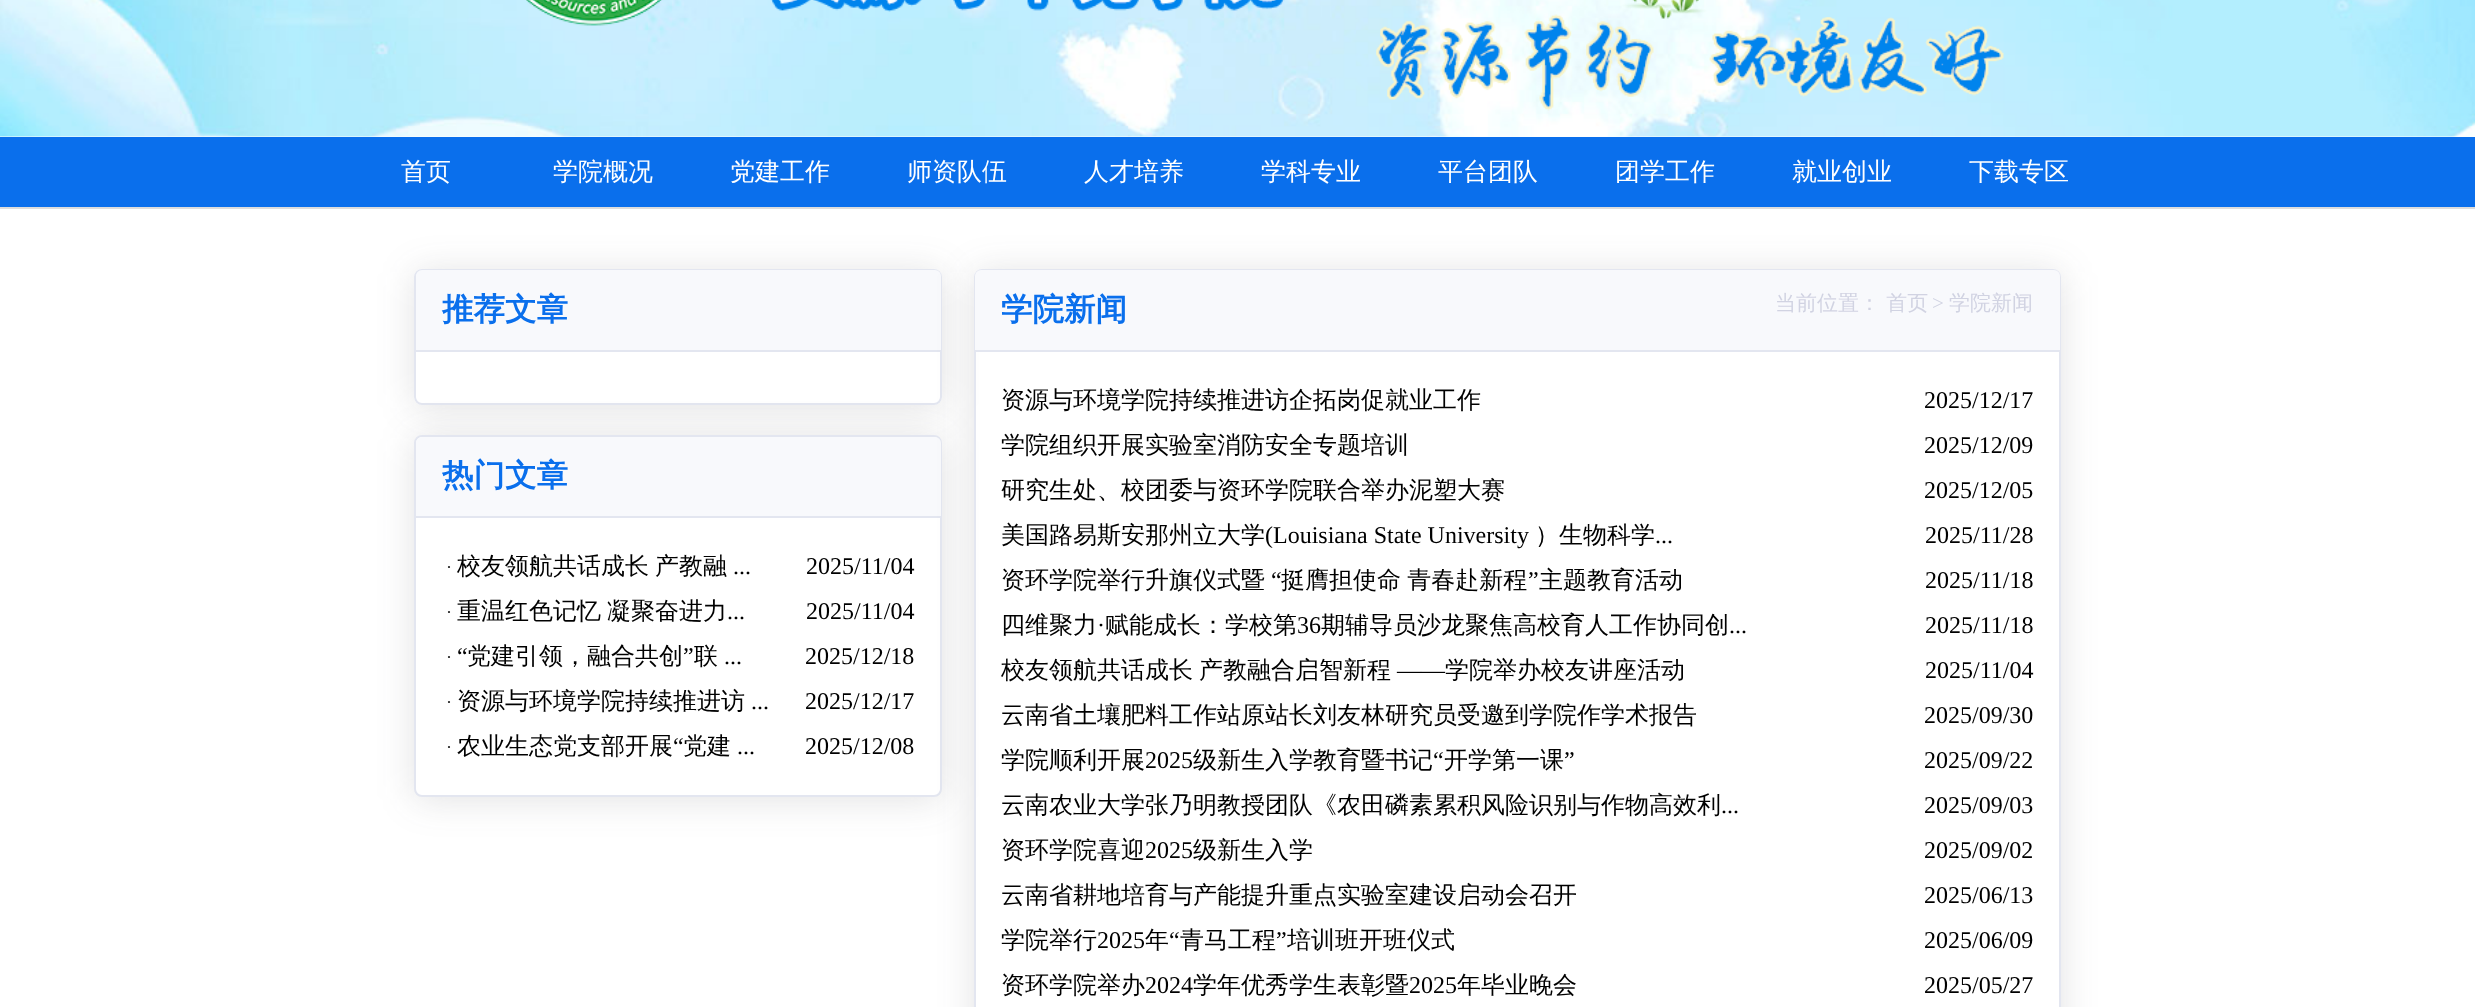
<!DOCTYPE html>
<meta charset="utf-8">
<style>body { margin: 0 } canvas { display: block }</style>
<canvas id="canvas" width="2475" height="1007"></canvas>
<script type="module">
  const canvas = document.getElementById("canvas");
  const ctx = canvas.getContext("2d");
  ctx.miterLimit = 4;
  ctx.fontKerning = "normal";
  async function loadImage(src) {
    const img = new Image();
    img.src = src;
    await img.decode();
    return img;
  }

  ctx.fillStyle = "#ffffff";
  ctx.fillRect(0, 0, 2475, 1007);
  ctx.drawImage(await loadImage("img1.png"), 0, 0, 2475, 137);
  ctx.drawImage(await loadImage("img2.png"), 526, 0, 1478, 111);
  ctx.fillStyle = "#0a6fec";
  ctx.fillRect(0, 137, 2475, 70);
  ctx.fillStyle = "#dddddd";
  ctx.fillRect(0, 207, 2475, 2);
  ctx.font = "500 25px WenQuanYi Zen Hei";
  ctx.fillStyle = "#ffffff";
  ctx.fillText("首页", 401, 180);
  ctx.fillText("学院概况", 553, 180);
  ctx.fillText("党建工作", 730, 180);
  ctx.fillText("师资队伍", 907, 180);
  ctx.fillText("人才培养", 1084, 180);
  ctx.fillText("学科专业", 1261, 180);
  ctx.fillText("平台团队", 1438, 180);
  ctx.fillText("团学工作", 1615, 180);
  ctx.fillText("就业创业", 1792, 180);
  ctx.fillText("下载专区", 1969, 180);
  ctx.save();
  ctx.beginPath();
  ctx.moveTo(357, 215);
  ctx.lineTo(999, 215);
  ctx.lineTo(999, 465);
  ctx.lineTo(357, 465);
  ctx.closePath();
  ctx.moveTo(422, 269);
  ctx.lineTo(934, 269);
  ctx.bezierCurveTo(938.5, 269, 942, 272.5, 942, 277);
  ctx.lineTo(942, 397);
  ctx.bezierCurveTo(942, 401.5, 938.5, 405, 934, 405);
  ctx.lineTo(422, 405);
  ctx.bezierCurveTo(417.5, 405, 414, 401.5, 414, 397);
  ctx.lineTo(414, 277);
  ctx.bezierCurveTo(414, 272.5, 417.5, 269, 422, 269);
  ctx.closePath();
  ctx.clip("evenodd");
  ctx.fillStyle = "rgba(58, 59, 69, 0.15)";
  ctx.filter = "blur(18.5px)";
  ctx.beginPath();
  ctx.roundRect(414, 272, 528, 136, 8);
  ctx.fill();
  ctx.filter = "none";
  ctx.restore();
  ctx.beginPath();
  ctx.roundRect(415, 270, 526, 134, 7);
  ctx.strokeStyle = "#e3e6f0";
  ctx.lineWidth = 2;
  ctx.stroke();
  ctx.fillStyle = "#f8f9fc";
  ctx.beginPath();
  ctx.roundRect(416, 270, 525, 81, [6, 6, 0, 0]);
  ctx.fill();
  ctx.fillStyle = "#e3e6f0";
  ctx.fillRect(416, 350, 525, 2);
  ctx.font = "bold 31.5px WenQuanYi Zen Hei";
  ctx.fillStyle = "#0a6fec";
  ctx.fillText("推荐文章", 442, 320);
  ctx.fillStyle = "rgba(58, 59, 69, 0.15)";
  ctx.filter = "blur(18.5px)";
  ctx.beginPath();
  ctx.roundRect(414, 438, 528, 362, 8);
  ctx.fill();
  ctx.filter = "none";
  ctx.fillStyle = "#ffffff";
  ctx.beginPath();
  ctx.roundRect(415, 436, 526, 360, 7);
  ctx.fill();
  ctx.stroke();
  ctx.fillStyle = "#f8f9fc";
  ctx.beginPath();
  ctx.roundRect(416, 437, 525, 81, [6, 6, 0, 0]);
  ctx.fill();
  ctx.fillStyle = "#e3e6f0";
  ctx.fillRect(416, 516, 525, 2);
  ctx.fillStyle = "#0a6fec";
  ctx.fillText("热门文章", 442, 486);
  ctx.font = "18px Liberation Serif";
  ctx.fillStyle = "#222222";
  ctx.fillText("·", 446, 573);
  ctx.font = "500 24px WenQuanYi Zen Hei";
  ctx.fillStyle = "#000000";
  ctx.fillText("校友领航共话成长", 457, 574);
  ctx.fillText("产教融", 655, 574);
  ctx.font = "24px Liberation Serif";
  ctx.fillText("...", 733, 574);
  ctx.fillText("2025/11/04", 806, 574);
  ctx.font = "18px Liberation Serif";
  ctx.fillStyle = "#222222";
  ctx.fillText("·", 446, 618);
  ctx.font = "500 24px WenQuanYi Zen Hei";
  ctx.fillStyle = "#000000";
  ctx.fillText("重温红色记忆", 457, 619);
  ctx.fillText("凝聚奋进力", 607, 619);
  ctx.font = "24px Liberation Serif";
  ctx.fillText("...", 727, 619);
  ctx.fillText("2025/11/04", 806, 619);
  ctx.font = "18px Liberation Serif";
  ctx.fillStyle = "#222222";
  ctx.fillText("·", 446, 663);
  ctx.font = "24px Liberation Serif";
  ctx.fillStyle = "#000000";
  ctx.fillText("“", 457, 664);
  ctx.font = "500 24px WenQuanYi Zen Hei";
  ctx.fillText("党建引领，融合共创", 467, 664);
  ctx.font = "24px Liberation Serif";
  ctx.fillText("”", 683, 664);
  ctx.font = "500 24px WenQuanYi Zen Hei";
  ctx.fillText("联", 694, 664);
  ctx.font = "24px Liberation Serif";
  ctx.fillText("...", 724, 664);
  ctx.fillText("2025/12/18", 805, 664);
  ctx.font = "18px Liberation Serif";
  ctx.fillStyle = "#222222";
  ctx.fillText("·", 446, 708);
  ctx.font = "500 24px WenQuanYi Zen Hei";
  ctx.fillStyle = "#000000";
  ctx.fillText("资源与环境学院持续推进访", 457, 709);
  ctx.font = "24px Liberation Serif";
  ctx.fillText("...", 751, 709);
  ctx.fillText("2025/12/17", 805, 709);
  ctx.font = "18px Liberation Serif";
  ctx.fillStyle = "#222222";
  ctx.fillText("·", 446, 753);
  ctx.font = "500 24px WenQuanYi Zen Hei";
  ctx.fillStyle = "#000000";
  ctx.fillText("农业生态党支部开展", 457, 754);
  ctx.font = "24px Liberation Serif";
  ctx.fillText("“", 673, 754);
  ctx.font = "500 24px WenQuanYi Zen Hei";
  ctx.fillText("党建", 683, 754);
  ctx.font = "24px Liberation Serif";
  ctx.fillText("...", 737, 754);
  ctx.fillText("2025/12/08", 805, 754);
  ctx.save();
  ctx.beginPath();
  ctx.moveTo(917, 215);
  ctx.lineTo(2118, 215);
  ctx.lineTo(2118, 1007);
  ctx.lineTo(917, 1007);
  ctx.closePath();
  ctx.moveTo(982, 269);
  ctx.lineTo(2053, 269);
  ctx.bezierCurveTo(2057.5, 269, 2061, 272.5, 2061, 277);
  ctx.lineTo(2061, 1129);
  ctx.bezierCurveTo(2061, 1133.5, 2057.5, 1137, 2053, 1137);
  ctx.lineTo(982, 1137);
  ctx.bezierCurveTo(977.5, 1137, 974, 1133.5, 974, 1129);
  ctx.lineTo(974, 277);
  ctx.bezierCurveTo(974, 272.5, 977.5, 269, 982, 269);
  ctx.closePath();
  ctx.clip("evenodd");
  ctx.fillStyle = "rgba(58, 59, 69, 0.15)";
  ctx.filter = "blur(18.5px)";
  ctx.beginPath();
  ctx.roundRect(974, 272, 1087, 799, 8);
  ctx.fill();
  ctx.filter = "none";
  ctx.restore();
  ctx.beginPath();
  ctx.roundRect(975, 270, 1085, 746, 7);
  ctx.stroke();
  ctx.fillStyle = "#f8f9fc";
  ctx.beginPath();
  ctx.roundRect(975, 270, 1085, 81, [6, 6, 0, 0]);
  ctx.fill();
  ctx.fillStyle = "#e3e6f0";
  ctx.fillRect(975, 350, 1085, 2);
  ctx.font = "bold 31.5px WenQuanYi Zen Hei";
  ctx.fillStyle = "#0a6fec";
  ctx.fillText("学院新闻", 1001, 320);
  ctx.font = "500 21px WenQuanYi Zen Hei";
  ctx.fillStyle = "#d1d3e2";
  ctx.fillText("当前位置： 首页", 1775, 310);
  ctx.font = "21px Liberation Serif";
  ctx.fillText(">", 1932, 310);
  ctx.font = "500 21px WenQuanYi Zen Hei";
  ctx.fillText("学院新闻", 1949, 310);
  ctx.font = "500 24px WenQuanYi Zen Hei";
  ctx.fillStyle = "#000000";
  ctx.fillText("资源与环境学院持续推进访企拓岗促就业工作", 1001, 408);
  ctx.font = "24px Liberation Serif";
  ctx.fillText("2025/12/17", 1924, 408);
  ctx.font = "500 24px WenQuanYi Zen Hei";
  ctx.fillText("学院组织开展实验室消防安全专题培训", 1001, 453);
  ctx.font = "24px Liberation Serif";
  ctx.fillText("2025/12/09", 1924, 453);
  ctx.font = "500 24px WenQuanYi Zen Hei";
  ctx.fillText("研究生处、校团委与资环学院联合举办泥塑大赛", 1001, 498);
  ctx.font = "24px Liberation Serif";
  ctx.fillText("2025/12/05", 1924, 498);
  ctx.font = "500 24px WenQuanYi Zen Hei";
  ctx.fillText("美国路易斯安那州立大学", 1001, 543);
  ctx.font = "24px Liberation Serif";
  ctx.fillText("(Louisiana State University", 1265, 543);
  ctx.font = "500 24px WenQuanYi Zen Hei";
  ctx.fillText("）生物科学", 1535, 543);
  ctx.font = "24px Liberation Serif";
  ctx.fillText("...", 1655, 543);
  ctx.fillText("2025/11/28", 1925, 543);
  ctx.font = "500 24px WenQuanYi Zen Hei";
  ctx.fillText("资环学院举行升旗仪式暨", 1001, 588);
  ctx.font = "24px Liberation Serif";
  ctx.fillText("“", 1271, 588);
  ctx.wordSpacing = "-1px";
  ctx.font = "500 24px WenQuanYi Zen Hei";
  ctx.fillText("挺膺担使命 青春赴新程", 1281, 588);
  ctx.wordSpacing = "0px";
  ctx.font = "24px Liberation Serif";
  ctx.fillText("”", 1528, 588);
  ctx.font = "500 24px WenQuanYi Zen Hei";
  ctx.fillText("主题教育活动", 1539, 588);
  ctx.font = "24px Liberation Serif";
  ctx.fillText("2025/11/18", 1925, 588);
  ctx.font = "500 24px WenQuanYi Zen Hei";
  ctx.fillText("四维聚力", 1001, 633);
  ctx.font = "24px Liberation Serif";
  ctx.fillText("·", 1097, 633);
  ctx.font = "500 24px WenQuanYi Zen Hei";
  ctx.fillText("赋能成长：学校第", 1105, 633);
  ctx.font = "24px Liberation Serif";
  ctx.fillText("36", 1297, 633);
  ctx.font = "500 24px WenQuanYi Zen Hei";
  ctx.fillText("期辅导员沙龙聚焦高校育人工作协同创", 1321, 633);
  ctx.font = "24px Liberation Serif";
  ctx.fillText("2025/11/18", 1925, 633);
  ctx.fillText("...", 1729, 633);
  ctx.font = "500 24px WenQuanYi Zen Hei";
  ctx.fillText("校友领航共话成长", 1001, 678);
  ctx.fillText("产教融合启智新程", 1199, 678);
  ctx.font = "24px Liberation Serif";
  ctx.fillText("——", 1397, 678);
  ctx.font = "500 24px WenQuanYi Zen Hei";
  ctx.fillText("学院举办校友讲座活动", 1445, 678);
  ctx.font = "24px Liberation Serif";
  ctx.fillText("2025/11/04", 1925, 678);
  ctx.font = "500 24px WenQuanYi Zen Hei";
  ctx.fillText("云南省土壤肥料工作站原站长刘友林研究员受邀到学院作学术报告", 1001, 723);
  ctx.font = "24px Liberation Serif";
  ctx.fillText("2025/09/30", 1924, 723);
  ctx.font = "500 24px WenQuanYi Zen Hei";
  ctx.fillText("学院顺利开展", 1001, 768);
  ctx.font = "24px Liberation Serif";
  ctx.fillText("2025", 1145, 768);
  ctx.font = "500 24px WenQuanYi Zen Hei";
  ctx.fillText("级新生入学教育暨书记", 1193, 768);
  ctx.font = "24px Liberation Serif";
  ctx.fillText("“", 1433, 768);
  ctx.font = "500 24px WenQuanYi Zen Hei";
  ctx.fillText("开学第一课", 1444, 768);
  ctx.font = "24px Liberation Serif";
  ctx.fillText("”", 1564, 768);
  ctx.fillText("2025/09/22", 1924, 768);
  ctx.font = "500 24px WenQuanYi Zen Hei";
  ctx.fillText("云南农业大学张乃明教授团队《农田磷素累积风险识别与作物高效利", 1001, 813);
  ctx.font = "24px Liberation Serif";
  ctx.fillText("...", 1721, 813);
  ctx.fillText("2025/09/03", 1924, 813);
  ctx.font = "500 24px WenQuanYi Zen Hei";
  ctx.fillText("资环学院喜迎", 1001, 858);
  ctx.font = "24px Liberation Serif";
  ctx.fillText("2025", 1145, 858);
  ctx.font = "500 24px WenQuanYi Zen Hei";
  ctx.fillText("级新生入学", 1193, 858);
  ctx.font = "24px Liberation Serif";
  ctx.fillText("2025/09/02", 1924, 858);
  ctx.font = "500 24px WenQuanYi Zen Hei";
  ctx.fillText("云南省耕地培育与产能提升重点实验室建设启动会召开", 1001, 903);
  ctx.font = "24px Liberation Serif";
  ctx.fillText("2025/06/13", 1924, 903);
  ctx.font = "500 24px WenQuanYi Zen Hei";
  ctx.fillText("学院举行", 1001, 948);
  ctx.font = "24px Liberation Serif";
  ctx.fillText("2025", 1097, 948);
  ctx.font = "500 24px WenQuanYi Zen Hei";
  ctx.fillText("年", 1145, 948);
  ctx.font = "24px Liberation Serif";
  ctx.fillText("“", 1169, 948);
  ctx.font = "500 24px WenQuanYi Zen Hei";
  ctx.fillText("青马工程", 1180, 948);
  ctx.font = "24px Liberation Serif";
  ctx.fillText("”", 1276, 948);
  ctx.font = "500 24px WenQuanYi Zen Hei";
  ctx.fillText("培训班开班仪式", 1287, 948);
  ctx.font = "24px Liberation Serif";
  ctx.fillText("2025/06/09", 1924, 948);
  ctx.font = "500 24px WenQuanYi Zen Hei";
  ctx.fillText("资环学院举办", 1001, 993);
  ctx.font = "24px Liberation Serif";
  ctx.fillText("2024", 1145, 993);
  ctx.font = "500 24px WenQuanYi Zen Hei";
  ctx.fillText("学年优秀学生表彰暨", 1193, 993);
  ctx.font = "24px Liberation Serif";
  ctx.fillText("2025", 1409, 993);
  ctx.font = "500 24px WenQuanYi Zen Hei";
  ctx.fillText("年毕业晚会", 1457, 993);
  ctx.font = "24px Liberation Serif";
  ctx.fillText("2025/05/27", 1924, 993);
</script>
